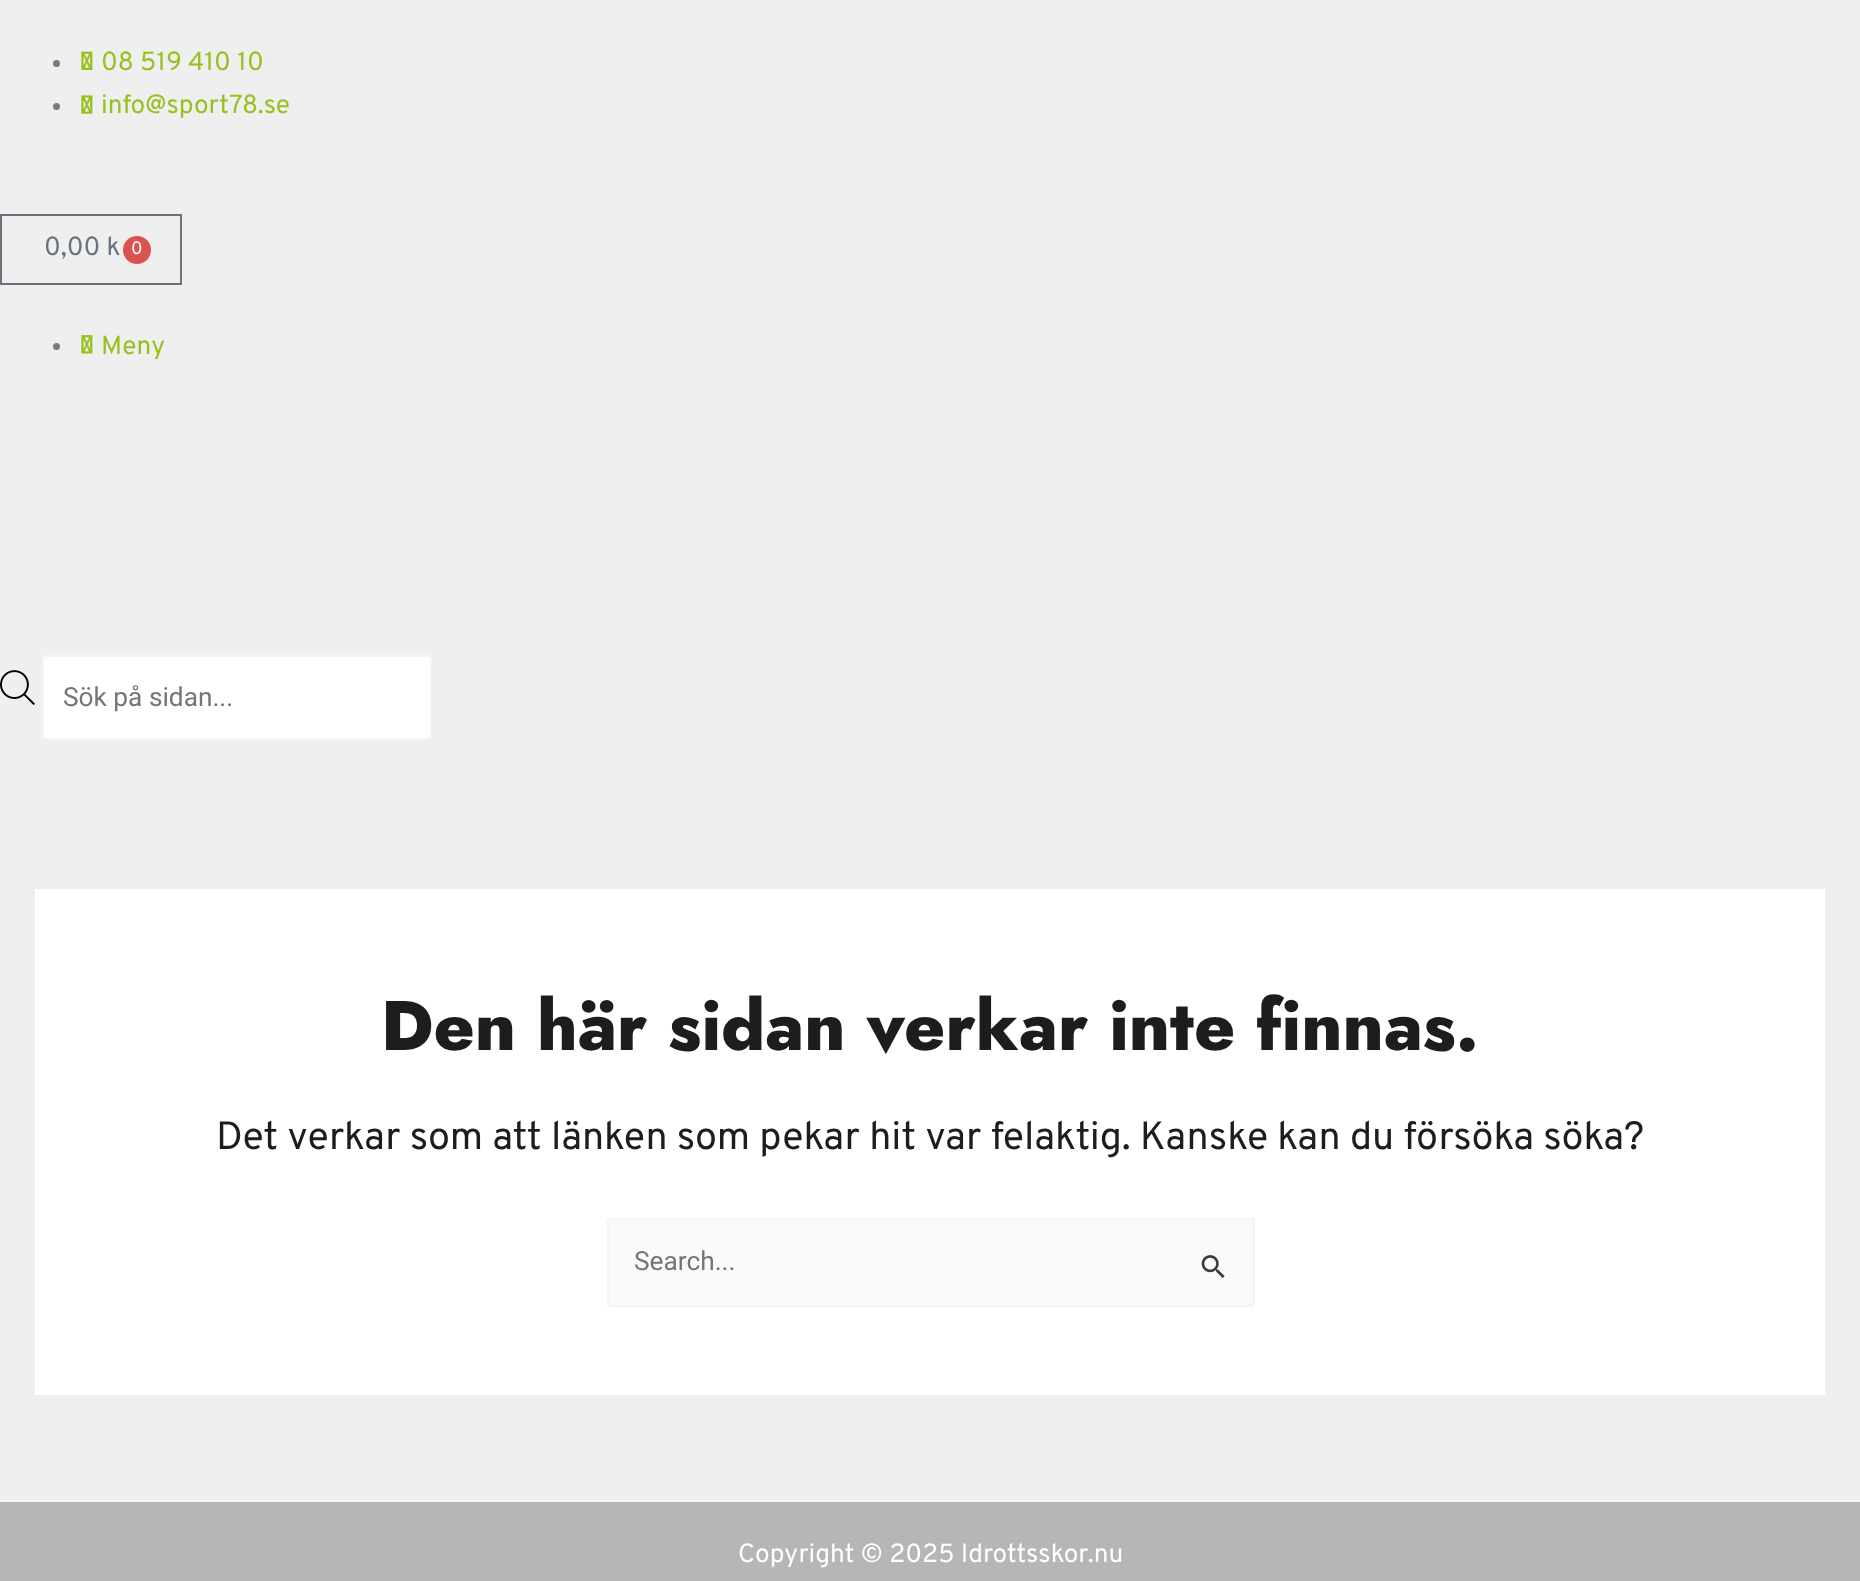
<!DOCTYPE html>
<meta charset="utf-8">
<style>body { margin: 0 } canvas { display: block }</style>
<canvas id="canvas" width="1860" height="1581"></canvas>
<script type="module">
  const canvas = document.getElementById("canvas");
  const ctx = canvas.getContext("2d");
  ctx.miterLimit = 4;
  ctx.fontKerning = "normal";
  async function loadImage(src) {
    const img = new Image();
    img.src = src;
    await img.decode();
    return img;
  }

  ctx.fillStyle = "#efefef";
  ctx.fillRect(0, 0, 1860, 1581);
  ctx.fillStyle = "#7a7a7a";
  ctx.beginPath();
  ctx.arc(56.5, 63.5, 3.5, 0, Math.PI * 2);
  ctx.fill();
  ctx.drawImage(await loadImage("img1.png"), 81, 51, 12, 19);
  ctx.font = "26.25px Overpass";
  ctx.fillStyle = "#96c11f";
  ctx.fillText("08 519 410 10", 101, 70);
  ctx.fillStyle = "#7a7a7a";
  ctx.beginPath();
  ctx.arc(56.5, 106.5, 3.5, 0, Math.PI * 2);
  ctx.fill();
  ctx.drawImage(await loadImage("img2.png"), 81, 95, 12, 19);
  ctx.fillStyle = "#96c11f";
  ctx.fillText("info@sport78.se", 101, 113);
  ctx.strokeStyle = "#69727d";
  ctx.lineWidth = 2;
  ctx.strokeRect(1, 215, 180, 69);
  ctx.fillStyle = "#69727d";
  ctx.fillText("0,00 k", 44, 255);
  ctx.fillStyle = "#d9534f";
  ctx.beginPath();
  ctx.arc(137, 250, 14, 0, Math.PI * 2);
  ctx.fill();
  ctx.font = "18px Overpass";
  ctx.fillStyle = "#ffffff";
  ctx.fillText("0", 131, 254);
  ctx.fillStyle = "#7a7a7a";
  ctx.beginPath();
  ctx.arc(56.5, 346.5, 3.5, 0, Math.PI * 2);
  ctx.fill();
  ctx.drawImage(await loadImage("img3.png"), 81, 335, 12, 19);
  ctx.font = "26.25px Overpass";
  ctx.fillStyle = "#96c11f";
  ctx.fillText("Meny", 101, 354);
  ctx.drawImage(await loadImage("img4.png"), 0, 670, 35, 35);
  ctx.fillStyle = "#ffffff";
  ctx.beginPath();
  ctx.rect(43, 656, 388, 83);
  ctx.fill();
  ctx.strokeStyle = "#f2f5f7";
  ctx.stroke();
  ctx.font = "26.25px Roboto";
  ctx.fillStyle = "#757575";
  ctx.fillText("Sök på sidan...", 63, 706);
  ctx.fillStyle = "#ffffff";
  ctx.fillRect(35, 889, 1790, 506);
  ctx.font = "800 70px Jost";
  ctx.fillStyle = "#1d1d1b";
  ctx.fillText("Den här sidan verkar inte finnas.", 381, 1050);
  ctx.font = "39.4px Overpass";
  ctx.fillText("Det verkar som att länken som pekar hit var felaktig. Kanske kan du försöka söka?", 216, 1149);
  ctx.fillStyle = "#fafafa";
  ctx.beginPath();
  ctx.roundRect(608, 1219, 646, 87, 3);
  ctx.fill();
  ctx.stroke();
  ctx.font = "26.25px Roboto";
  ctx.fillStyle = "#757575";
  ctx.fillText("Search...", 634, 1270);
  ctx.drawImage(await loadImage("img5.png"), 1201, 1255, 24, 23);
  ctx.fillStyle = "#b6b6b6";
  ctx.fillRect(0, 1502, 1860, 79);
  ctx.fillStyle = "#f2f5f7";
  ctx.fillRect(0, 1500, 1860, 2);
  ctx.font = "26.25px Overpass";
  ctx.fillStyle = "#ffffff";
  ctx.fillText("Copyright © 2025 Idrottsskor.nu", 738, 1562);
</script>
